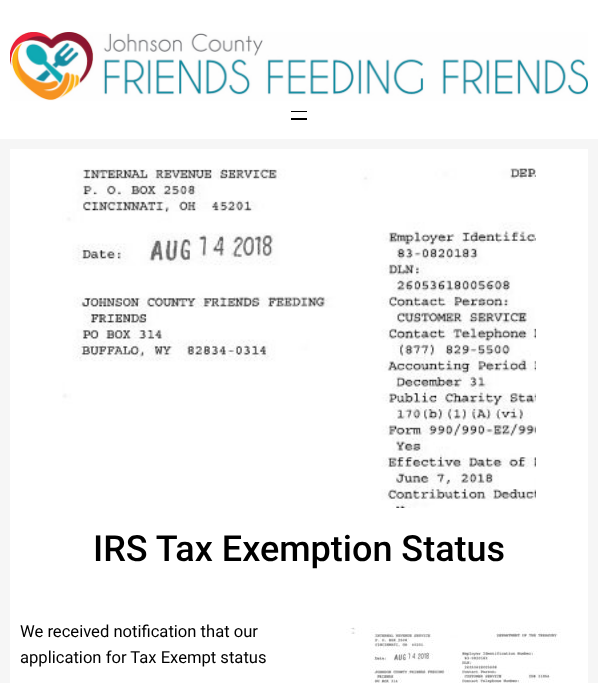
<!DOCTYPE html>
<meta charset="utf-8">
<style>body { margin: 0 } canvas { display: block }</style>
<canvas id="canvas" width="598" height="683"></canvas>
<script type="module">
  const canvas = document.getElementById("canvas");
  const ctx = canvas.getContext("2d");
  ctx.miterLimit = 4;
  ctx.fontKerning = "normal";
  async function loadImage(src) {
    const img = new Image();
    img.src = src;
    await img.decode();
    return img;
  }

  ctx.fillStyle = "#ffffff";
  ctx.fillRect(0, 0, 598, 683);
  ctx.drawImage(await loadImage("img1.png"), 10, 32, 578, 69);
  ctx.fillStyle = "#000000";
  ctx.fillRect(291, 111, 16, 1);
  ctx.fillRect(291, 118, 16, 2);
  ctx.fillStyle = "#f6f6f6";
  ctx.fillRect(0, 139, 598, 544);
  ctx.fillStyle = "#ffffff";
  ctx.fillRect(10, 149, 578, 534);
  ctx.drawImage(await loadImage("img2.png"), 62, 168, 474, 340);
  ctx.font = "500 36px Roboto";
  ctx.fillStyle = "#000000";
  ctx.fillText("IRS Tax Exemption Status", 93, 561);
  ctx.font = "16.6px Roboto";
  ctx.fillText("We received notification that our", 20, 637);
  ctx.fillText("application for Tax Exempt status", 20, 663);
  ctx.drawImage(await loadImage("img3.png"), 346, 627, 215, 56);
</script>
